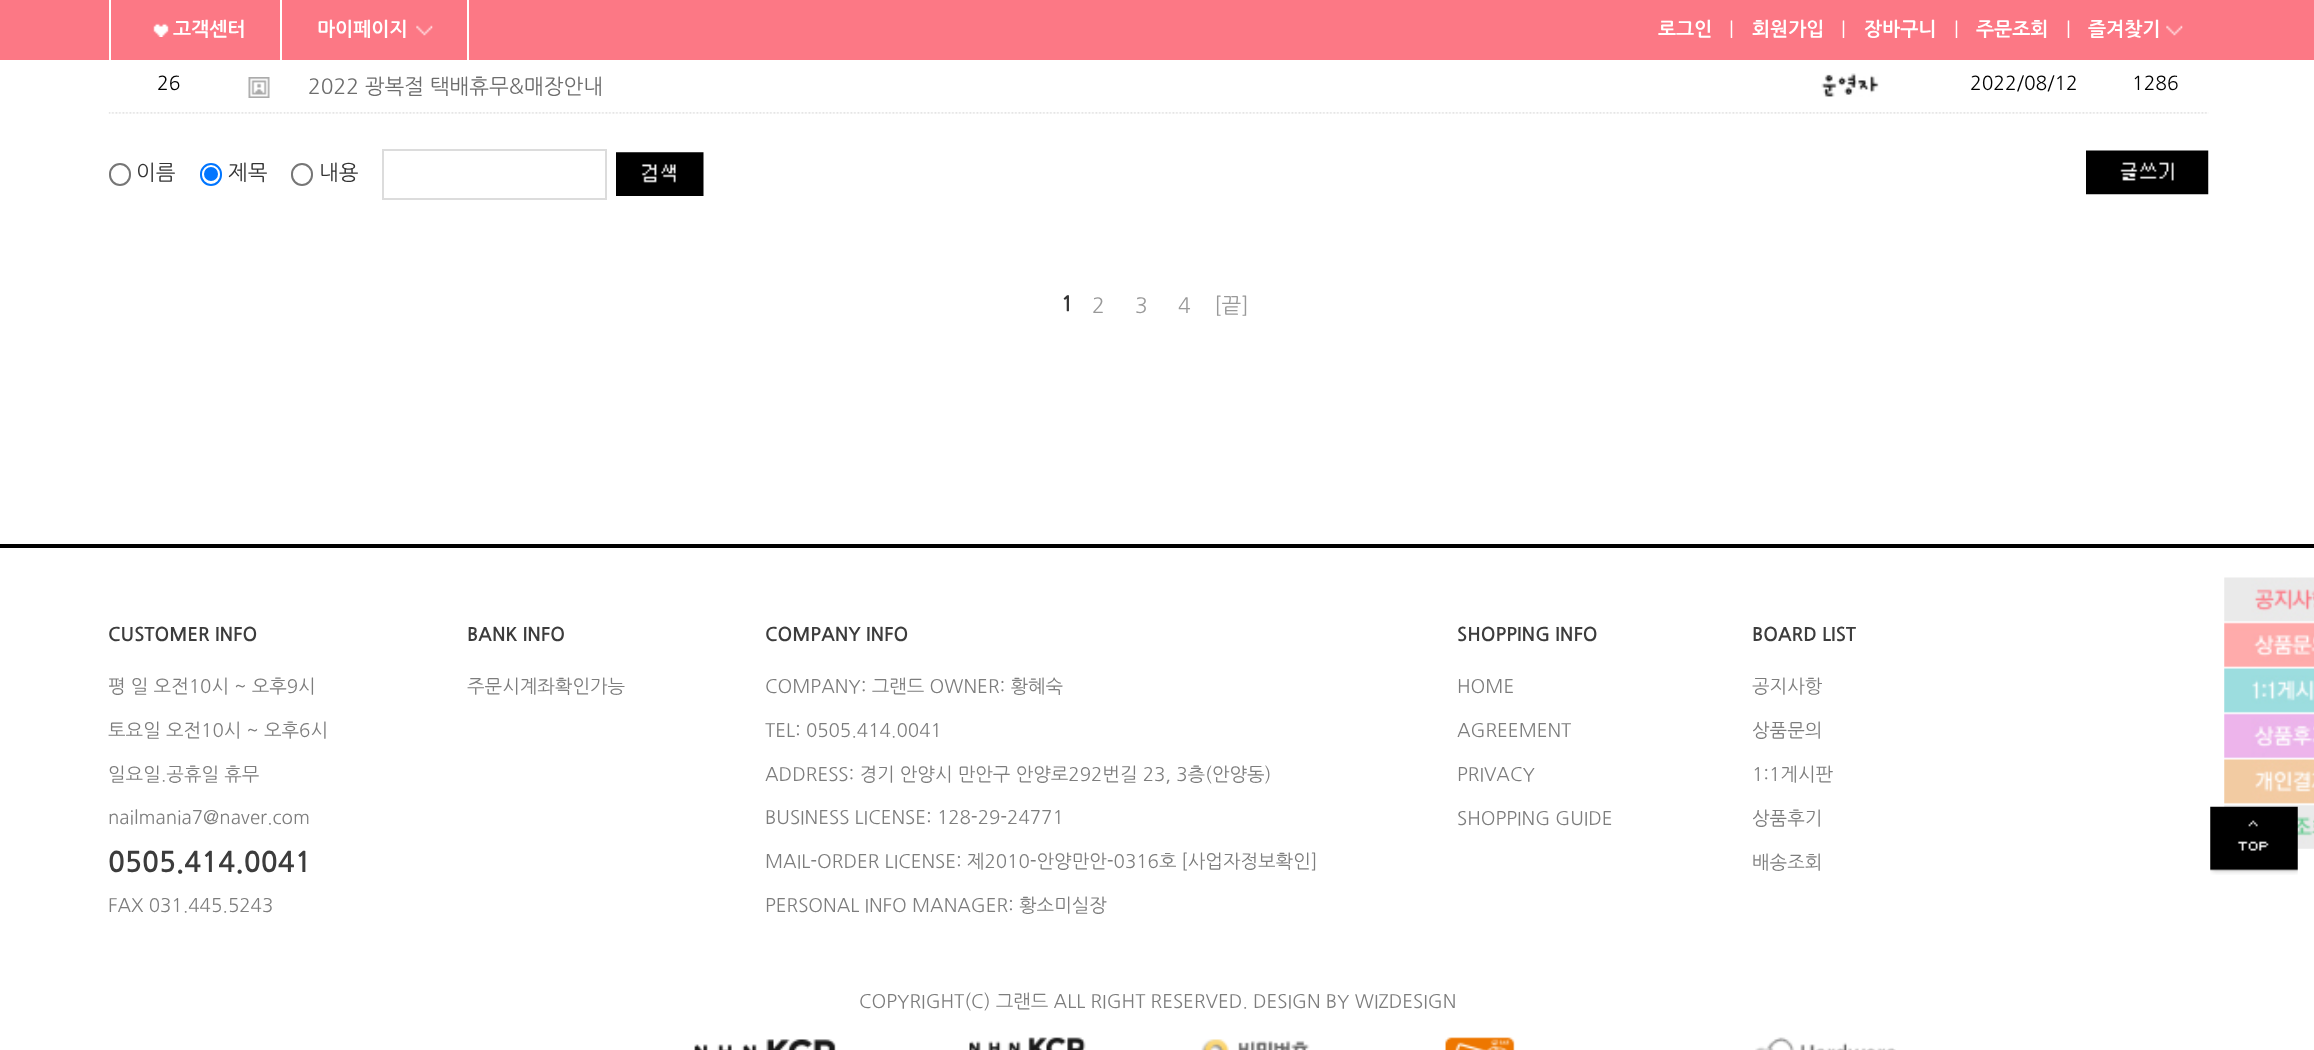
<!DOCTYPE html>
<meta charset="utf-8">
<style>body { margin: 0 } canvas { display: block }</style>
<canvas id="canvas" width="2314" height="1050"></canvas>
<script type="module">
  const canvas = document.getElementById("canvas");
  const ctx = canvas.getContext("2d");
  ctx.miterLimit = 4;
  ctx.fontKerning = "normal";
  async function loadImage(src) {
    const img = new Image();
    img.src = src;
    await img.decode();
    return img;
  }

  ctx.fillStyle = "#ffffff";
  ctx.fillRect(0, 0, 2314, 1050);
  ctx.fillStyle = "#fc7885";
  ctx.fillRect(0, 0, 2314, 60);
  ctx.fillStyle = "#ffffff";
  ctx.fillRect(280, 0, 2, 60);
  ctx.fillRect(109, 0, 2, 60);
  ctx.drawImage(await loadImage("img1.png"), 153, 23, 16, 14);
  ctx.font = "bold 19.25px NanumGothic";
  ctx.fillText("고객센터", 173, 35);
  ctx.fillRect(467, 0, 2, 60);
  ctx.fillText("마이페이지", 317, 35);
  ctx.drawImage(await loadImage("img2.png"), 416, 25, 17, 11);
  ctx.fillText("로그인", 1658, 35);
  ctx.font = "19.25px NanumGothic";
  ctx.fillText("|", 1729, 35);
  ctx.font = "bold 19.25px NanumGothic";
  ctx.fillText("회원가입", 1752, 35);
  ctx.font = "19.25px NanumGothic";
  ctx.fillText("|", 1841, 35);
  ctx.font = "bold 19.25px NanumGothic";
  ctx.fillText("장바구니", 1864, 35);
  ctx.font = "19.25px NanumGothic";
  ctx.fillText("|", 1954, 35);
  ctx.font = "bold 19.25px NanumGothic";
  ctx.fillText("주문조회", 1976, 35);
  ctx.font = "19.25px NanumGothic";
  ctx.fillText("|", 2066, 35);
  ctx.font = "bold 19.25px NanumGothic";
  ctx.fillText("즐겨찾기", 2088, 35);
  ctx.drawImage(await loadImage("img2.png"), 2166, 25, 17, 11);
  ctx.drawImage(await loadImage("img3.png"), 108, 112, 123, 2);
  ctx.font = "19.25px 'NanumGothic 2'";
  ctx.fillStyle = "#000000";
  ctx.fillText("26", 157, 90);
  ctx.drawImage(await loadImage("img4.png"), 231, 112, 53, 2);
  ctx.drawImage(await loadImage("img5.png"), 248, 77, 22, 21);
  ctx.drawImage(await loadImage("img6.png"), 284, 112, 1470, 2);
  ctx.font = "21px NanumGothic";
  ctx.fillStyle = "#6d6d6d";
  ctx.fillText("2022 광복절 택배휴무&매장안내", 308, 93);
  ctx.drawImage(await loadImage("img7.png"), 1754, 112, 192, 2);
  ctx.drawImage(await loadImage("img8.png"), 1821, 73, 58, 24);
  ctx.drawImage(await loadImage("img9.png"), 1946, 112, 158, 2);
  ctx.font = "19.25px 'NanumGothic 2'";
  ctx.fillStyle = "#000000";
  ctx.fillText("2022/08/12", 1970, 90);
  ctx.drawImage(await loadImage("img10.png"), 2104, 112, 105, 2);
  ctx.fillText("1286", 2132, 90);
  ctx.beginPath();
  ctx.roundRect(110, 164, 20, 21, 10);
  ctx.strokeStyle = "#767676";
  ctx.lineWidth = 2;
  ctx.stroke();
  ctx.font = "21px NanumGothic";
  ctx.fillStyle = "#333333";
  ctx.fillText("이름", 136, 179);
  ctx.beginPath();
  ctx.roundRect(201, 164, 20, 21, 10);
  ctx.strokeStyle = "#0075ff";
  ctx.stroke();
  ctx.fillStyle = "#0075ff";
  ctx.beginPath();
  ctx.arc(211, 174, 7, 0, Math.PI * 2);
  ctx.fill();
  ctx.fillStyle = "#333333";
  ctx.fillText("제목", 228, 179);
  ctx.beginPath();
  ctx.roundRect(292, 164, 20, 21, 10);
  ctx.strokeStyle = "#767676";
  ctx.stroke();
  ctx.fillText("내용", 319, 179);
  ctx.strokeStyle = "#dcdcdc";
  ctx.strokeRect(383, 150, 223, 49);
  ctx.drawImage(await loadImage("img11.png"), 616, 152, 88, 44);
  ctx.drawImage(await loadImage("img12.png"), 2086, 150, 123, 45);
  ctx.font = "bold 21px NanumGothic";
  ctx.fillText("1", 1061, 310);
  ctx.font = "21px NanumGothic";
  ctx.fillStyle = "#999999";
  ctx.fillText("2", 1092, 312);
  ctx.fillText("3", 1135, 312);
  ctx.fillText("4", 1178, 312);
  ctx.fillText("[끝]", 1214, 312);
  ctx.fillStyle = "#000000";
  ctx.fillRect(0, 544, 2314, 4);
  ctx.font = "bold 18.7px 'NanumGothic 2'";
  ctx.fillStyle = "#3c3c3c";
  ctx.fillText("CUSTOMER INFO", 108, 641);
  ctx.font = "18.7px 'NanumGothic 2'";
  ctx.fillStyle = "#7d7d7d";
  ctx.fillText("평 일 오전10시 ~ 오후9시", 108, 693);
  ctx.fillText("토요일 오전10시 ~ 오후6시", 108, 737);
  ctx.fillText("일요일.공휴일 휴무", 108, 781);
  ctx.fillText("nailmania7@naver.com", 108, 824);
  ctx.font = "bold 28px 'NanumGothic 2'";
  ctx.fillStyle = "#3c3c3c";
  ctx.fillText("0505.414.0041", 108, 872);
  ctx.font = "18.7px 'NanumGothic 2'";
  ctx.fillStyle = "#7d7d7d";
  ctx.fillText("FAX 031.445.5243", 108, 912);
  ctx.font = "bold 18.7px 'NanumGothic 2'";
  ctx.fillStyle = "#3c3c3c";
  ctx.fillText("BANK INFO", 467, 641);
  ctx.font = "18.7px 'NanumGothic 2'";
  ctx.fillStyle = "#7d7d7d";
  ctx.fillText("주문시계좌확인가능", 467, 693);
  ctx.font = "bold 18.7px 'NanumGothic 2'";
  ctx.fillStyle = "#3c3c3c";
  ctx.fillText("COMPANY INFO", 765, 641);
  ctx.font = "18.7px 'NanumGothic 2'";
  ctx.fillStyle = "#7d7d7d";
  ctx.fillText("COMPANY: 그랜드 OWNER: 황혜숙", 765, 693);
  ctx.fillText("TEL: 0505.414.0041", 765, 737);
  ctx.fillText("ADDRESS: 경기 안양시 만안구 안양로292번길 23, 3층(안양동)", 765, 781);
  ctx.fillText("BUSINESS LICENSE: 128-29-24771", 765, 824);
  ctx.fillText("MAIL-ORDER LICENSE: 제2010-안양만안-0316호", 765, 868);
  ctx.fillText("[사업자정보확인]", 1181, 868);
  ctx.fillText("PERSONAL INFO MANAGER: 황소미실장", 765, 912);
  ctx.font = "bold 18.7px 'NanumGothic 2'";
  ctx.fillStyle = "#3c3c3c";
  ctx.fillText("SHOPPING INFO", 1457, 641);
  ctx.font = "18.7px 'NanumGothic 2'";
  ctx.fillStyle = "#7d7d7d";
  ctx.fillText("HOME", 1457, 693);
  ctx.fillText("AGREEMENT", 1457, 737);
  ctx.fillText("PRIVACY", 1457, 781);
  ctx.fillText("SHOPPING GUIDE", 1457, 825);
  ctx.font = "bold 18.7px 'NanumGothic 2'";
  ctx.fillStyle = "#3c3c3c";
  ctx.fillText("BOARD LIST", 1752, 641);
  ctx.font = "18.7px 'NanumGothic 2'";
  ctx.fillStyle = "#7d7d7d";
  ctx.fillText("공지사항", 1752, 693);
  ctx.fillText("상품문의", 1752, 737);
  ctx.fillText("1:1게시판", 1752, 781);
  ctx.fillText("상품후기", 1752, 825);
  ctx.fillText("배송조회", 1752, 869);
  ctx.fillText("COPYRIGHT(C) 그랜드 ALL RIGHT RESERVED.", 859, 1008);
  ctx.fillText("DESIGN BY WIZDESIGN", 1253, 1008);
  ctx.drawImage(await loadImage("img13.png"), 694, 1039, 142, 11);
  ctx.drawImage(await loadImage("img14.png"), 969, 1037, 117, 13);
  ctx.drawImage(await loadImage("img15.png"), 1201, 1039, 109, 11);
  ctx.drawImage(await loadImage("img16.png"), 1445, 1037, 70, 13);
  ctx.drawImage(await loadImage("img17.png"), 1755, 1037, 141, 13);
  ctx.drawImage(await loadImage("img19.png"), 2224, 577, 90, 272);
  ctx.drawImage(await loadImage("img18.png"), 2210, 806, 88, 69);
</script>
